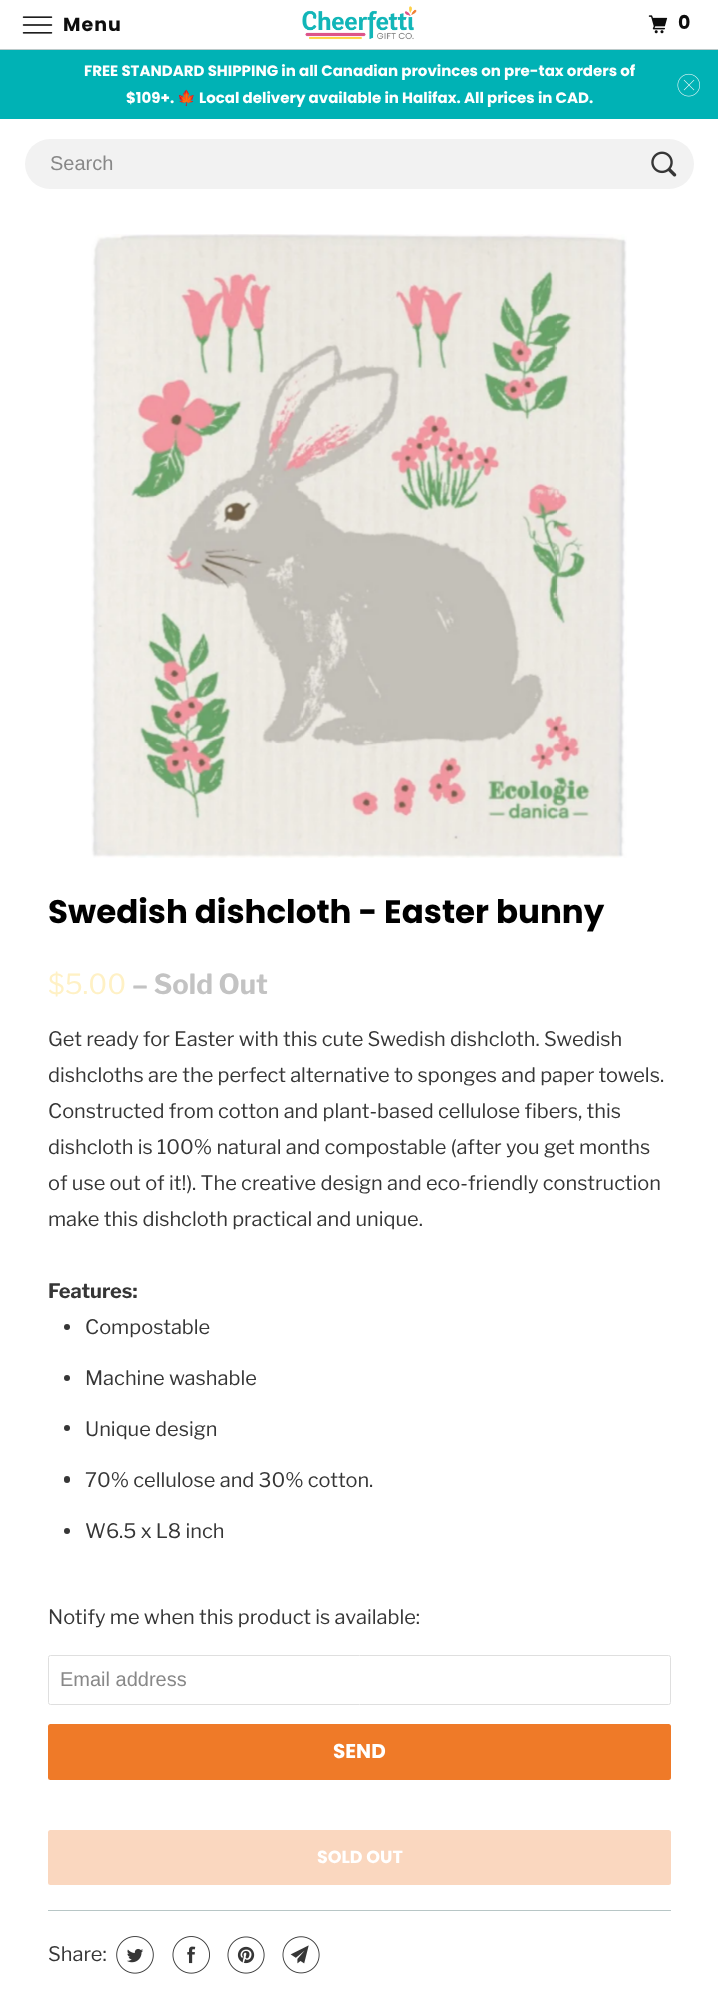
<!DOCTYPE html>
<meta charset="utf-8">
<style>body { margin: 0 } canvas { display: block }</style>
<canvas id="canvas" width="718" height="1995"></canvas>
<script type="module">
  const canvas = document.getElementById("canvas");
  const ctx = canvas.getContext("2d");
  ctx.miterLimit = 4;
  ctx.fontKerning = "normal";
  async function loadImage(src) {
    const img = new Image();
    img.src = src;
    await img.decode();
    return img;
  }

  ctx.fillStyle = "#ffffff";
  ctx.fillRect(0, 0, 718, 1995);
  ctx.fillStyle = "#bcc9c9";
  ctx.fillRect(0, 49, 718, 1);
  ctx.drawImage(await loadImage("img1.png"), 22, 16, 31, 18);
  ctx.letterSpacing = "1px";
  ctx.font = "bold 19px Poppins";
  ctx.fillStyle = "#0d0d0d";
  ctx.fillText("Menu", 63, 31);
  ctx.drawImage(await loadImage("img2.png"), 302, 6, 115, 34);
  ctx.drawImage(await loadImage("img3.png"), 648, 15, 20, 19);
  ctx.fillText("0", 678, 29);
  ctx.fillStyle = "#00b2b5";
  ctx.fillRect(0, 50, 718, 69);
  ctx.letterSpacing = "0px";
  ctx.font = "bold 15px Poppins";
  ctx.fillStyle = "#ffffff";
  ctx.fillText("FREE STANDARD SHIPPING in all Canadian provinces on pre-tax orders of", 84, 76);
  ctx.fillText("$109+.", 126, 103);
  ctx.font = "bold 15px Noto Color Emoji";
  ctx.fillText("🍁", 177, 103);
  ctx.font = "bold 15px Poppins";
  ctx.fillText("Local delivery available in Halifax. All prices in CAD.", 199, 103);
  ctx.drawImage(await loadImage("img4.png"), 677, 73, 23, 24);
  ctx.fillStyle = "#f2f2f2";
  ctx.beginPath();
  ctx.roundRect(25, 139, 669, 50, 25);
  ctx.fill();
  ctx.font = "20px Liberation Sans";
  ctx.fillStyle = "#888888";
  ctx.fillText("Search", 50, 170);
  ctx.drawImage(await loadImage("img5.png"), 651, 151, 26, 26);
  ctx.drawImage(await loadImage("img6.png"), 91, 234, 536, 624);
  ctx.font = "bold 32.5px Poppins";
  ctx.fillStyle = "#000000";
  ctx.fillText("Swedish dishcloth - Easter bunny", 48, 923);
  ctx.font = "27.5px Libre Franklin";
  ctx.fillStyle = "#fff1c5";
  ctx.fillText("$5.00", 48, 994);
  ctx.font = "bold 27.5px Libre Franklin";
  ctx.fillStyle = "#c3c3c3";
  ctx.fillText("– Sold Out", 132, 994);
  ctx.font = "20px Libre Franklin";
  ctx.fillStyle = "#363636";
  ctx.fillText("Get ready for Easter with this cute Swedish dishcloth. Swedish", 48, 1046);
  ctx.fillText("dishcloths are the perfect alternative to sponges and paper towels.", 48, 1082);
  ctx.fillText("Constructed from cotton and plant-based cellulose fibers, this", 48, 1118);
  ctx.fillText("dishcloth is 100% natural and compostable (after you get months", 48, 1154);
  ctx.fillText("of use out of it!). The creative design and eco-friendly construction", 48, 1190);
  ctx.fillText("make this dishcloth practical and unique.", 48, 1226);
  ctx.font = "bold 20px Libre Franklin";
  ctx.fillText("Features:", 48, 1298);
  ctx.beginPath();
  ctx.arc(67, 1327, 3, 0, Math.PI * 2);
  ctx.fill();
  ctx.font = "20px Libre Franklin";
  ctx.fillText("Compostable", 85, 1334);
  ctx.beginPath();
  ctx.arc(67, 1378, 3, 0, Math.PI * 2);
  ctx.fill();
  ctx.fillText("Machine washable", 85, 1385);
  ctx.beginPath();
  ctx.arc(67, 1428, 3, 0, Math.PI * 2);
  ctx.fill();
  ctx.fillText("Unique design", 85, 1436);
  ctx.beginPath();
  ctx.roundRect(64, 1476, 6, 7, 3);
  ctx.fill();
  ctx.fillText("70% cellulose and 30% cotton.", 85, 1487);
  ctx.beginPath();
  ctx.arc(67, 1531, 3, 0, Math.PI * 2);
  ctx.fill();
  ctx.fillText("W6.5 x L8 inch", 85, 1538);
  ctx.fillText("Notify me when this product is available:", 48, 1624);
  ctx.beginPath();
  ctx.roundRect(48.5, 1655.5, 622, 49, 2);
  ctx.strokeStyle = "#dfdfdf";
  ctx.stroke();
  ctx.font = "20px Liberation Sans";
  ctx.fillStyle = "#888888";
  ctx.fillText("Email address", 60, 1686);
  ctx.fillStyle = "#ef7a28";
  ctx.beginPath();
  ctx.roundRect(48, 1724, 623, 56, 2.5);
  ctx.fill();
  ctx.font = "bold 20px Poppins";
  ctx.fillStyle = "#ffffff";
  ctx.fillText("SEND", 333, 1758);
  ctx.fillStyle = "#fad7bf";
  ctx.beginPath();
  ctx.roundRect(48, 1830, 623, 55, 2.5);
  ctx.fill();
  ctx.font = "bold 17.5px Poppins";
  ctx.fillStyle = "#ffffff";
  ctx.fillText("SOLD OUT", 317, 1863);
  ctx.fillStyle = "#b8c6c6";
  ctx.fillRect(48, 1910, 623, 1);
  ctx.font = "20px Libre Franklin";
  ctx.fillStyle = "#363636";
  ctx.fillText("Share:", 48, 1961);
  ctx.drawImage(await loadImage("img7.png"), 116, 1936, 38, 38);
  ctx.drawImage(await loadImage("img8.png"), 172, 1936, 38, 38);
  ctx.drawImage(await loadImage("img9.png"), 227, 1936, 38, 38);
  ctx.drawImage(await loadImage("img10.png"), 282, 1936, 38, 38);
</script>
